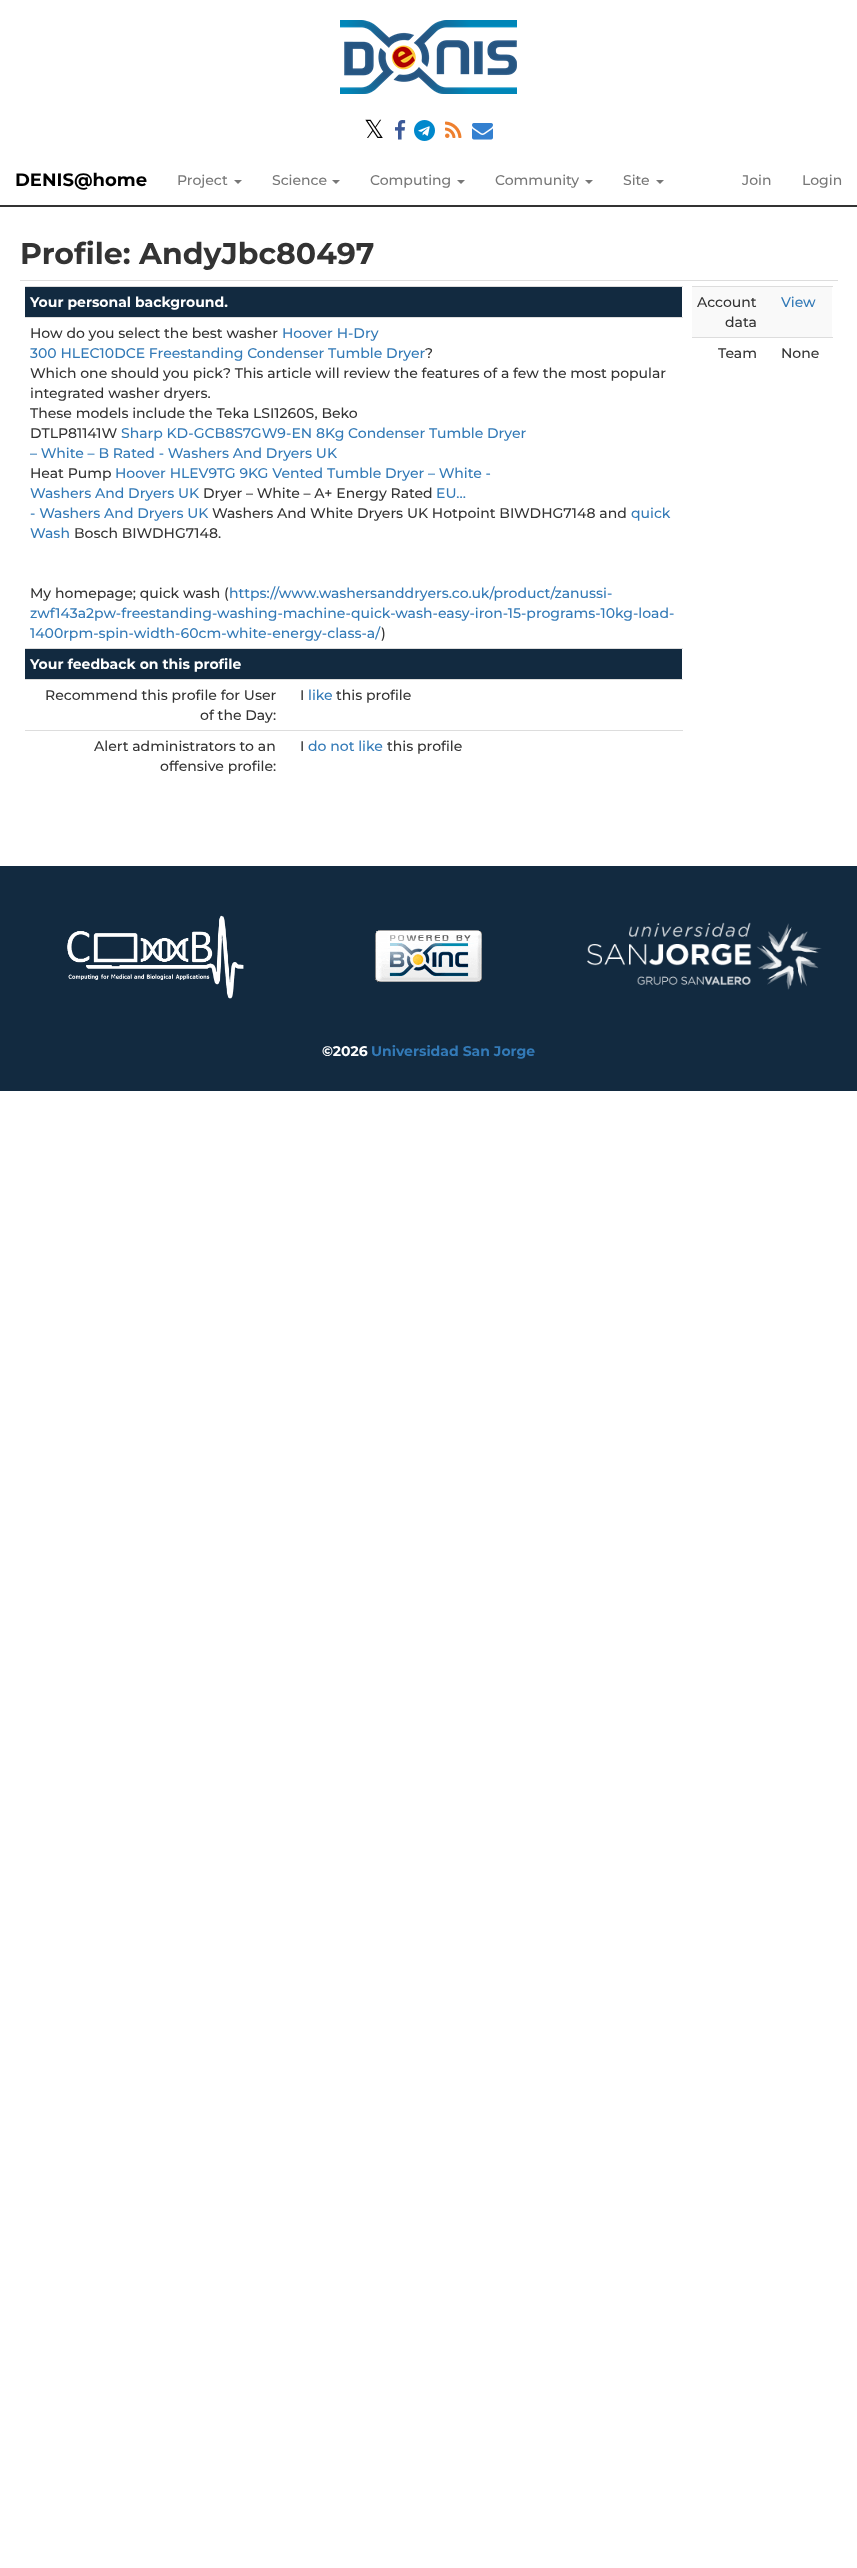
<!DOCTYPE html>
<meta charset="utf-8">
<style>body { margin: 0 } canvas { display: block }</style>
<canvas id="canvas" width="857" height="2568"></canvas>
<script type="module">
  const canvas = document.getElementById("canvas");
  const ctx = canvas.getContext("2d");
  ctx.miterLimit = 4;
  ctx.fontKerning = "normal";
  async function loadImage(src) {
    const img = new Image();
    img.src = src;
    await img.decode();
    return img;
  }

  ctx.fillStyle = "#ffffff";
  ctx.fillRect(0, 0, 857, 2568);
  ctx.drawImage(await loadImage("img1.png"), 340, 20, 177, 74);
  ctx.font = "25px DejaVu Sans";
  ctx.fillStyle = "#000000";
  ctx.fillText("𝕏", 364, 138);
  ctx.drawImage(await loadImage("img2.png"), 395, 120, 11, 20);
  ctx.drawImage(await loadImage("img3.png"), 414, 120, 21, 21);
  ctx.drawImage(await loadImage("img4.png"), 445, 121, 17, 17);
  ctx.drawImage(await loadImage("img5.png"), 472, 123, 21, 17);
  ctx.fillStyle = "#333333";
  ctx.fillRect(0, 205, 857, 2);
  ctx.font = "bold 18px Montserrat";
  ctx.fillStyle = "#000000";
  ctx.fillText("DENIS@home", 15, 186);
  ctx.font = "500 14px Montserrat";
  ctx.fillStyle = "#777777";
  ctx.fillText("Project", 177, 185);
  ctx.beginPath();
  ctx.moveTo(234, 180);
  ctx.lineTo(242, 180);
  ctx.lineTo(238, 184);
  ctx.closePath();
  ctx.fill();
  ctx.fillText("Science", 272, 185);
  ctx.beginPath();
  ctx.moveTo(332, 180);
  ctx.lineTo(340, 180);
  ctx.lineTo(336, 184);
  ctx.closePath();
  ctx.fill();
  ctx.fillText("Computing", 370, 185);
  ctx.beginPath();
  ctx.moveTo(457, 180);
  ctx.lineTo(465, 180);
  ctx.lineTo(461, 184);
  ctx.closePath();
  ctx.fill();
  ctx.fillText("Community", 495, 185);
  ctx.beginPath();
  ctx.moveTo(585, 180);
  ctx.lineTo(593, 180);
  ctx.lineTo(589, 184);
  ctx.closePath();
  ctx.fill();
  ctx.fillText("Site", 623, 185);
  ctx.beginPath();
  ctx.moveTo(656, 180);
  ctx.lineTo(664, 180);
  ctx.lineTo(660, 184);
  ctx.closePath();
  ctx.fill();
  ctx.fillText("Join", 742, 185);
  ctx.fillText("Login", 802, 185);
  ctx.font = "bold 30px Montserrat";
  ctx.fillStyle = "#333333";
  ctx.fillText("Profile: AndyJbc80497", 20, 264);
  ctx.fillStyle = "#122a40";
  ctx.fillRect(25, 287, 657, 30);
  ctx.fillStyle = "#dddddd";
  ctx.fillRect(25, 286, 658, 1);
  ctx.font = "bold 14px Montserrat";
  ctx.fillStyle = "#ffffff";
  ctx.fillText("Your personal background.", 30, 307);
  ctx.fillStyle = "#dddddd";
  ctx.fillRect(25, 317, 658, 1);
  ctx.font = "500 14px Montserrat";
  ctx.fillStyle = "#333333";
  ctx.fillText("How do you select the best washer", 30, 338);
  ctx.fillStyle = "#337ab7";
  ctx.fillText("Hoover H-Dry", 282, 338);
  ctx.fillText("300 HLEC10DCE Freestanding Condenser Tumble Dryer", 30, 358);
  ctx.fillStyle = "#333333";
  ctx.fillText("?", 425, 358);
  ctx.fillText("Which one should you pick? This article will review the features of a few the most popular", 30, 378);
  ctx.fillText("integrated washer dryers.", 30, 398);
  ctx.fillText("These models include the Teka LSI1260S, Beko", 30, 418);
  ctx.fillText("DTLP81141W", 30, 438);
  ctx.fillStyle = "#337ab7";
  ctx.fillText("Sharp KD-GCB8S7GW9-EN 8Kg Condenser Tumble Dryer", 121, 438);
  ctx.fillText("– White – B Rated - Washers And Dryers UK", 30, 458);
  ctx.fillStyle = "#333333";
  ctx.fillText("Heat Pump", 30, 478);
  ctx.fillStyle = "#337ab7";
  ctx.fillText("Hoover HLEV9TG 9KG Vented Tumble Dryer – White -", 115, 478);
  ctx.fillText("Washers And Dryers UK", 30, 498);
  ctx.fillStyle = "#333333";
  ctx.fillText("Dryer – White – A+ Energy Rated", 203, 498);
  ctx.fillStyle = "#337ab7";
  ctx.fillText("EU…", 436, 498);
  ctx.fillText("- Washers And Dryers UK", 30, 518);
  ctx.fillStyle = "#333333";
  ctx.fillText("Washers And White Dryers UK Hotpoint BIWDHG7148 and", 212, 518);
  ctx.fillStyle = "#337ab7";
  ctx.fillText("quick", 631, 518);
  ctx.fillText("Wash", 30, 538);
  ctx.fillStyle = "#333333";
  ctx.fillText("Bosch BIWDHG7148.", 74, 538);
  ctx.fillText("My homepage; quick wash (", 30, 598);
  ctx.fillStyle = "#337ab7";
  ctx.fillText("https://www.washersanddryers.co.uk/product/zanussi-", 229, 598);
  ctx.fillText("zwf143a2pw-freestanding-washing-machine-quick-wash-easy-iron-15-programs-10kg-load-", 30, 618);
  ctx.fillText("1400rpm-spin-width-60cm-white-energy-class-a/", 30, 638);
  ctx.fillStyle = "#333333";
  ctx.fillText(")", 381, 638);
  ctx.fillStyle = "#122a40";
  ctx.fillRect(25, 649, 657, 30);
  ctx.fillStyle = "#dddddd";
  ctx.fillRect(25, 648, 658, 1);
  ctx.font = "bold 14px Montserrat";
  ctx.fillStyle = "#ffffff";
  ctx.fillText("Your feedback on this profile", 30, 669);
  ctx.font = "500 14px Montserrat";
  ctx.fillStyle = "#333333";
  ctx.fillText("Recommend this profile for User", 45, 700);
  ctx.fillText("of the Day:", 200, 720);
  ctx.fillStyle = "#dddddd";
  ctx.fillRect(25, 679, 658, 1);
  ctx.fillStyle = "#333333";
  ctx.fillText("I", 300, 700);
  ctx.fillStyle = "#337ab7";
  ctx.fillText("like", 308, 700);
  ctx.fillStyle = "#333333";
  ctx.fillText("this profile", 336, 700);
  ctx.fillText("Alert administrators to an", 94, 751);
  ctx.fillText("offensive profile:", 160, 771);
  ctx.fillStyle = "#dddddd";
  ctx.fillRect(25, 730, 658, 1);
  ctx.fillStyle = "#333333";
  ctx.fillText("I", 300, 751);
  ctx.fillStyle = "#337ab7";
  ctx.fillText("do not like", 308, 751);
  ctx.fillStyle = "#333333";
  ctx.fillText("this profile", 387, 751);
  ctx.fillStyle = "#dddddd";
  ctx.fillRect(20, 280, 818, 1);
  ctx.fillStyle = "#f9f9f9";
  ctx.fillRect(692, 287, 140, 50);
  ctx.fillStyle = "#333333";
  ctx.fillText("Account", 697, 307);
  ctx.fillText("data", 725, 327);
  ctx.fillStyle = "#dddddd";
  ctx.fillRect(692, 286, 141, 1);
  ctx.fillStyle = "#337ab7";
  ctx.fillText("View", 781, 307);
  ctx.fillStyle = "#333333";
  ctx.fillText("Team", 718, 358);
  ctx.fillStyle = "#dddddd";
  ctx.fillRect(692, 337, 141, 1);
  ctx.fillStyle = "#333333";
  ctx.fillText("None", 781, 358);
  ctx.fillStyle = "#122a40";
  ctx.fillRect(0, 866, 857, 225);
  ctx.drawImage(await loadImage("img6.png"), 67, 915, 177, 84);
  ctx.drawImage(await loadImage("img7.png"), 375, 930, 107, 52);
  ctx.drawImage(await loadImage("img8.png"), 587, 922, 235, 68);
  ctx.font = "bold 14px Montserrat";
  ctx.fillStyle = "#ffffff";
  ctx.fillText("©2026", 322, 1056);
  ctx.fillStyle = "#337ab7";
  ctx.fillText("Universidad San Jorge", 371, 1056);
</script>
